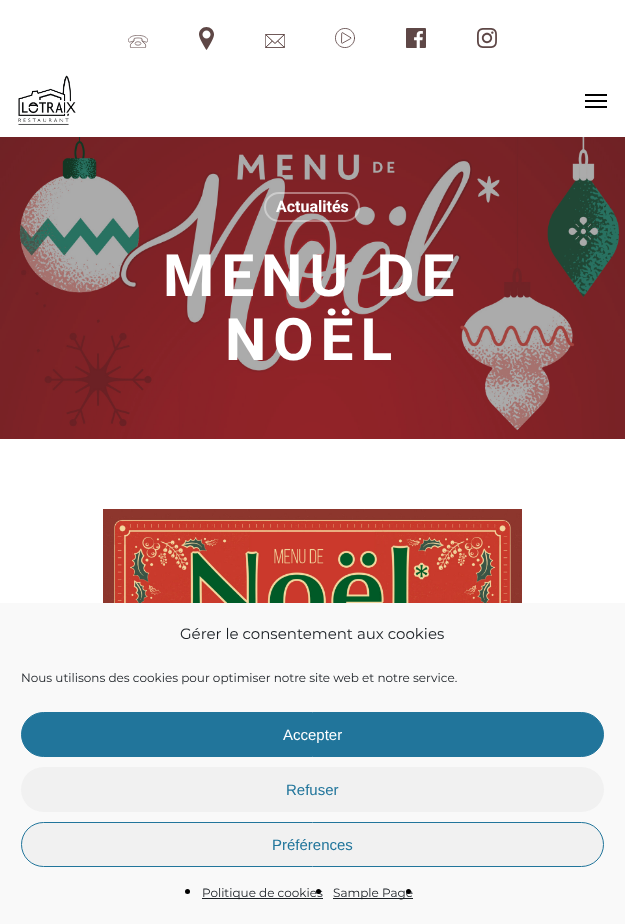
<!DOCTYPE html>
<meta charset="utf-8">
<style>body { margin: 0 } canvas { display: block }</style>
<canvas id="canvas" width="625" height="924"></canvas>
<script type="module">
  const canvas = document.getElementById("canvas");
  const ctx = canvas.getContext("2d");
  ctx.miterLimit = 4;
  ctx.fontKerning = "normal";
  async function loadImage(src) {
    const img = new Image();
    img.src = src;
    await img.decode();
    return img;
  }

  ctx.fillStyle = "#ffffff";
  ctx.fillRect(0, 0, 625, 924);
  ctx.drawImage(await loadImage("img1.png"), 128, 35, 20, 13);
  ctx.drawImage(await loadImage("img2.png"), 199, 27, 15, 23);
  ctx.drawImage(await loadImage("img3.png"), 265, 34, 20, 14);
  ctx.drawImage(await loadImage("img4.png"), 335, 28, 20, 20);
  ctx.drawImage(await loadImage("img5.png"), 406, 28, 20, 20);
  ctx.drawImage(await loadImage("img6.png"), 477, 28, 20, 20);
  ctx.drawImage(await loadImage("img7.png"), 18, 75, 58, 50);
  ctx.fillStyle = "#000000";
  ctx.fillRect(585, 94, 22, 2);
  ctx.fillRect(585, 106, 22, 2);
  ctx.fillRect(585, 100, 22, 2);
  ctx.drawImage(await loadImage("img8.png"), 0, 137, 625, 302);
  ctx.beginPath();
  ctx.roundRect(265, 193, 94, 28, 14);
  ctx.strokeStyle = "rgba(255, 255, 255, 0.4)";
  ctx.lineWidth = 2;
  ctx.stroke();
  ctx.font = "bold 16px Roboto";
  ctx.fillStyle = "#ffffff";
  ctx.fillText("Actualités", 276, 212);
  ctx.letterSpacing = "7px";
  ctx.font = "bold 58.5px Roboto";
  ctx.fillText("MENU DE", 163, 296);
  ctx.fillText("NOËL", 225, 360);
  ctx.drawImage(await loadImage("img9.png"), 103, 509, 419, 94);
  ctx.fillStyle = "#f9f9f9";
  ctx.fillRect(0, 603, 625, 321);
  ctx.letterSpacing = "0px";
  ctx.font = "15px Montserrat";
  ctx.fillStyle = "#191e23";
  ctx.fillText("Gérer le consentement aux cookies", 180, 639);
  ctx.font = "12px Montserrat";
  ctx.fillText("Nous utilisons des cookies pour optimiser notre site web et notre service.", 21, 682);
  ctx.fillStyle = "#21759b";
  ctx.beginPath();
  ctx.roundRect(21.5, 712.5, 582, 44, 22);
  ctx.fill();
  ctx.strokeStyle = "#21759b";
  ctx.lineWidth = 1;
  ctx.stroke();
  ctx.font = "15px Liberation Sans";
  ctx.fillStyle = "#ffffff";
  ctx.fillText("Accepter", 283, 740);
  ctx.fillStyle = "#f1f1f1";
  ctx.beginPath();
  ctx.roundRect(21, 767, 583, 45, 22.5);
  ctx.fill();
  ctx.fillStyle = "#21759b";
  ctx.fillText("Refuser", 286, 795);
  ctx.fillStyle = "#f1f1f1";
  ctx.beginPath();
  ctx.roundRect(21.5, 822.5, 582, 44, 22);
  ctx.fill();
  ctx.stroke();
  ctx.fillStyle = "#21759b";
  ctx.fillText("Préférences", 272, 850);
  ctx.fillStyle = "#000000";
  ctx.beginPath();
  ctx.arc(187.5, 891.5, 2.5, 0, Math.PI * 2);
  ctx.fill();
  ctx.fillStyle = "#191e23";
  ctx.fillRect(202, 898, 121, 1);
  ctx.font = "12px Montserrat";
  ctx.fillText("Politique de cookies", 202, 897);
  ctx.fillStyle = "#000000";
  ctx.beginPath();
  ctx.arc(318.5, 891.5, 2.5, 0, Math.PI * 2);
  ctx.fill();
  ctx.fillStyle = "#191e23";
  ctx.fillRect(333, 898, 80, 1);
  ctx.fillText("Sample Page", 333, 897);
  ctx.fillStyle = "#000000";
  ctx.beginPath();
  ctx.arc(408.5, 891.5, 2.5, 0, Math.PI * 2);
  ctx.fill();
</script>
